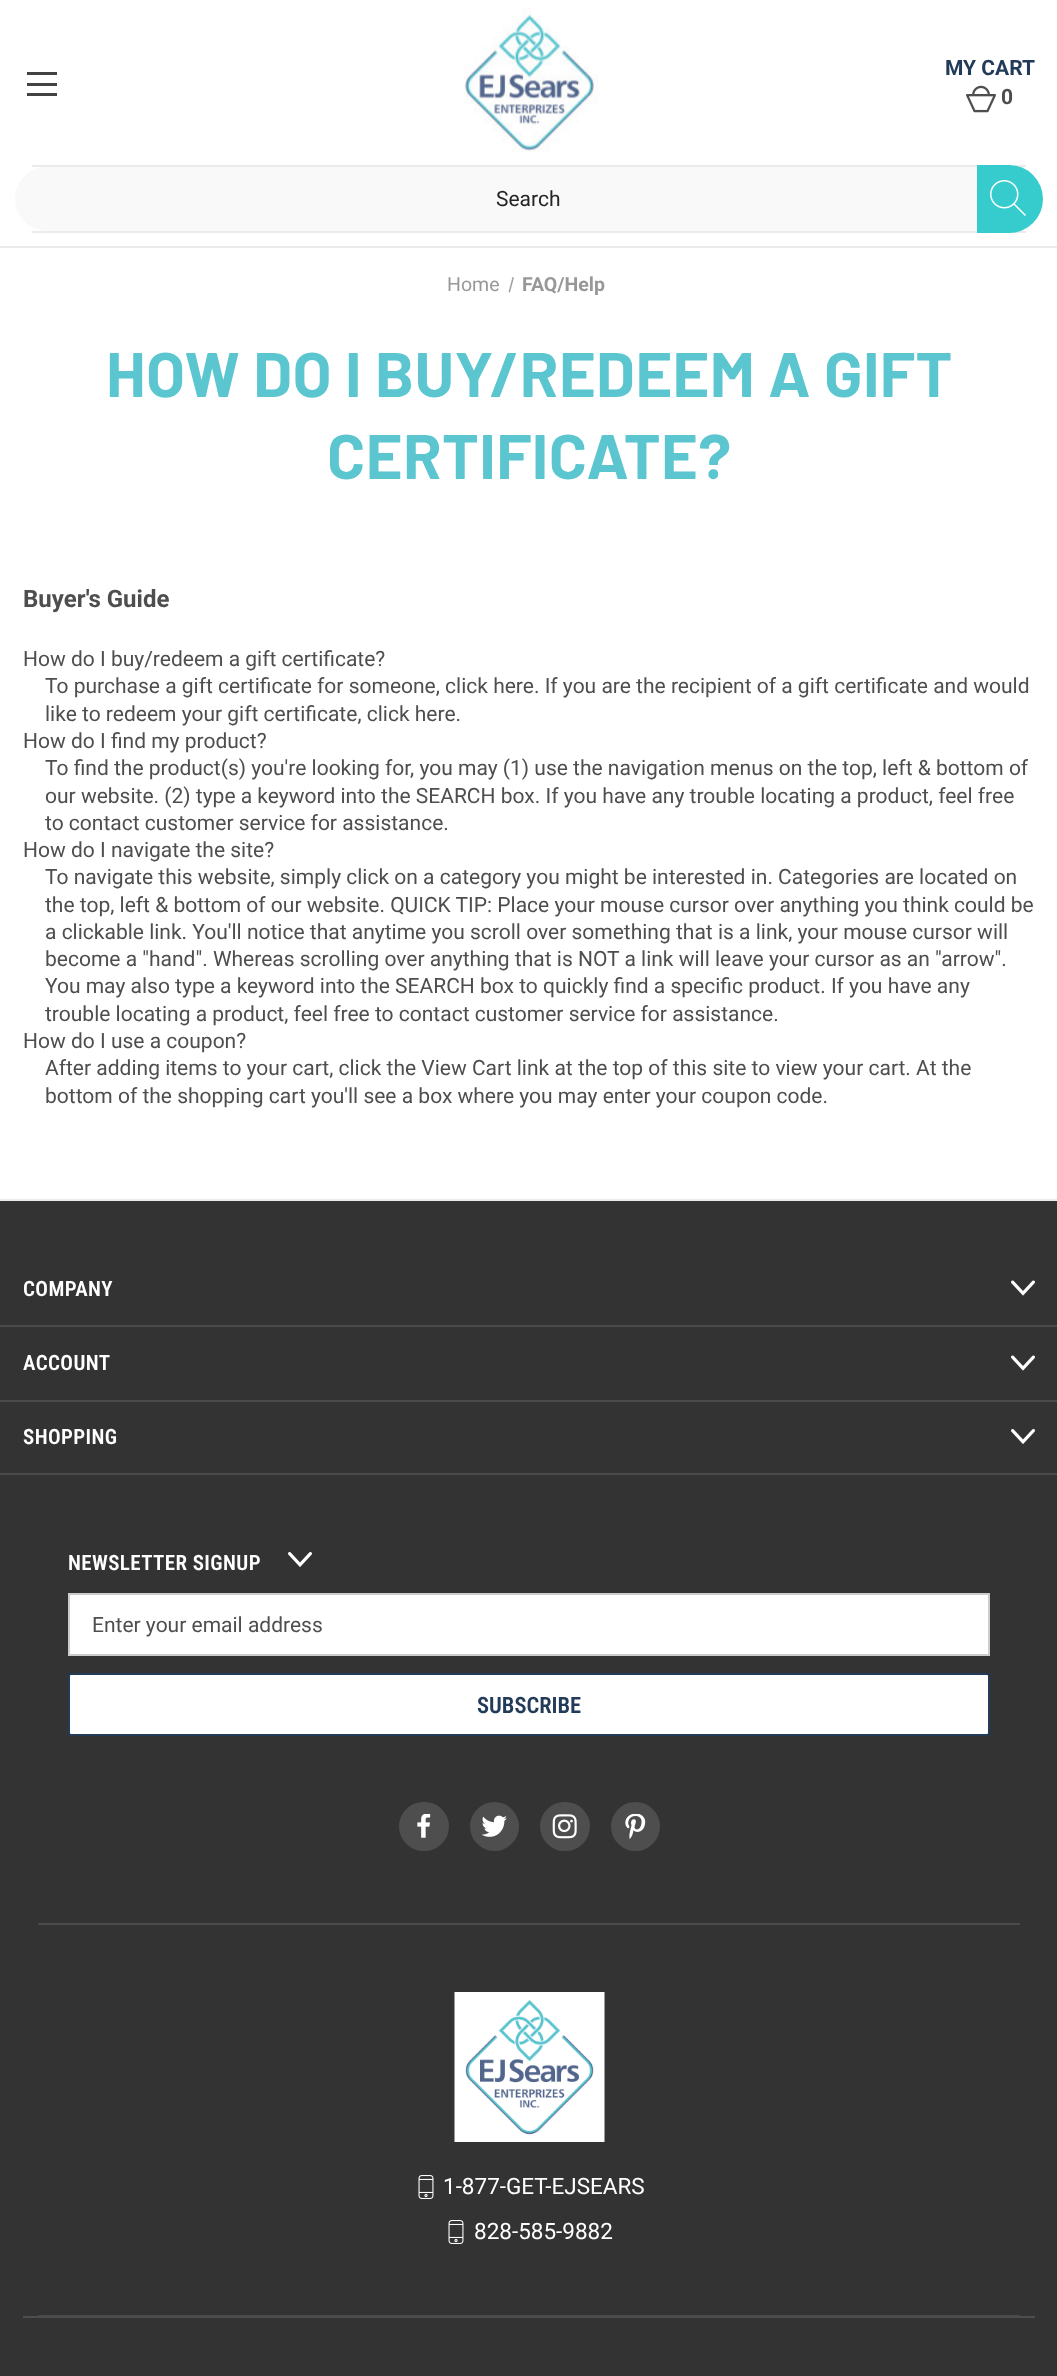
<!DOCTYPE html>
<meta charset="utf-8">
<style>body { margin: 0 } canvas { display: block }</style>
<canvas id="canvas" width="1057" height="2376"></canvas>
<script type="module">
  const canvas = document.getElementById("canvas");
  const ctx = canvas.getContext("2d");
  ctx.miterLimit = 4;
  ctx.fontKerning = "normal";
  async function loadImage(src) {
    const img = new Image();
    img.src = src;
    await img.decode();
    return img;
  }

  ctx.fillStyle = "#ffffff";
  ctx.fillRect(0, 0, 1057, 2376);
  ctx.fillStyle = "#ebebeb";
  ctx.fillRect(0, 246, 1057, 2);
  ctx.fillStyle = "#424242";
  ctx.fillRect(27, 83, 30, 3);
  ctx.fillRect(27, 72, 30, 3);
  ctx.fillRect(27, 93, 30, 3);
  ctx.drawImage(await loadImage("img1.png"), 464, 7, 134, 145);
  ctx.font = "bold 21px Roboto";
  ctx.fillStyle = "#223b58";
  ctx.fillText("MY CART", 945, 75);
  ctx.drawImage(await loadImage("img2.png"), 966, 85, 30, 28);
  ctx.fillStyle = "#4e4e4e";
  ctx.fillText("0", 1001, 104);
  ctx.fillStyle = "#f9f9f9";
  ctx.beginPath();
  ctx.moveTo(49, 166);
  ctx.lineTo(1009, 166);
  ctx.bezierCurveTo(1027, 166, 1042, 181, 1042, 199);
  ctx.bezierCurveTo(1042, 217, 1027, 231, 1009, 231);
  ctx.lineTo(49, 231);
  ctx.bezierCurveTo(30, 231, 15, 217, 15, 199);
  ctx.bezierCurveTo(15, 181, 30, 166, 49, 166);
  ctx.closePath();
  ctx.fill();
  ctx.fillStyle = "#ebebeb";
  ctx.fillRect(32, 165, 994, 2);
  ctx.fillRect(32, 231, 994, 2);
  ctx.font = "21px Roboto";
  ctx.fillStyle = "#242424";
  ctx.fillText("Search", 496, 206);
  ctx.fillStyle = "#36ccce";
  ctx.beginPath();
  ctx.roundRect(977, 165, 66, 68, [0, 34, 34, 0]);
  ctx.fill();
  ctx.drawImage(await loadImage("img3.png"), 990, 180, 36, 36);
  ctx.font = "19.5px Roboto";
  ctx.fillStyle = "#989898";
  ctx.fillText("Home", 447, 291);
  ctx.fillStyle = "#a3a3a3";
  ctx.beginPath();
  ctx.moveTo(512.5, 277);
  ctx.lineTo(514, 277.5);
  ctx.lineTo(510, 292.5);
  ctx.lineTo(508.5, 292);
  ctx.closePath();
  ctx.fill();
  ctx.font = "bold 19.5px Roboto";
  ctx.fillStyle = "#989898";
  ctx.fillText("FAQ/Help", 522, 291);
  ctx.letterSpacing = "0.4px";
  ctx.font = "bold 63px Barlow";
  ctx.fillStyle = "#5bc6d0";
  ctx.fillText("HOW DO I BUY/REDEEM A GIFT", 106, 397);
  ctx.fillText("CERTIFICATE?", 327, 479);
  ctx.letterSpacing = "0px";
  ctx.font = "bold 24px Roboto";
  ctx.fillStyle = "#4e4e4e";
  ctx.fillText("Buyer's Guide", 23, 607);
  ctx.font = "21px Roboto";
  ctx.fillText("How do I buy/redeem a gift certificate?", 23, 666);
  ctx.fillText("To purchase a gift certificate for someone, click here. If you are the recipient of a gift certificate and would", 45, 693);
  ctx.fillText("like to redeem your gift certificate, click here.", 45, 721);
  ctx.fillText("How do I find my product?", 23, 748);
  ctx.fillText("To find the product(s) you're looking for, you may (1) use the navigation menus on the top, left & bottom of", 45, 775);
  ctx.fillText("our website. (2) type a keyword into the SEARCH box. If you have any trouble locating a product, feel free", 45, 803);
  ctx.fillText("to contact customer service for assistance.", 45, 830);
  ctx.fillText("How do I navigate the site?", 23, 857);
  ctx.fillText("To navigate this website, simply click on a category you might be interested in. Categories are located on", 45, 884);
  ctx.fillText("the top, left & bottom of our website. QUICK TIP: Place your mouse cursor over anything you think could be", 45, 912);
  ctx.fillText("a clickable link. You'll notice that anytime you scroll over something that is a link, your mouse cursor will", 45, 939);
  ctx.fillText("become a \"hand\". Whereas scrolling over anything that is NOT a link will leave your cursor as an \"arrow\".", 45, 966);
  ctx.fillText("You may also type a keyword into the SEARCH box to quickly find a specific product. If you have any", 45, 993);
  ctx.fillText("trouble locating a product, feel free to contact customer service for assistance.", 45, 1021);
  ctx.fillText("How do I use a coupon?", 23, 1048);
  ctx.fillText("After adding items to your cart, click the View Cart link at the top of this site to view your cart. At the", 45, 1075);
  ctx.fillText("bottom of the shopping cart you'll see a box where you may enter your coupon code.", 45, 1103);
  ctx.fillStyle = "#333333";
  ctx.fillRect(0, 1201, 1057, 1175);
  ctx.fillStyle = "#ebebeb";
  ctx.fillRect(0, 1199, 1057, 2);
  ctx.fillStyle = "#4a4a4a";
  ctx.fillRect(0, 1325, 1057, 2);
  ctx.letterSpacing = "0.4px";
  ctx.font = "600 21px Roboto Condensed";
  ctx.fillStyle = "#ffffff";
  ctx.fillText("COMPANY", 23, 1296);
  ctx.drawImage(await loadImage("img4.png"), 1011, 1280, 24, 16);
  ctx.fillStyle = "#4a4a4a";
  ctx.fillRect(0, 1400, 1057, 2);
  ctx.fillStyle = "#ffffff";
  ctx.fillText("ACCOUNT", 23, 1370);
  ctx.drawImage(await loadImage("img4.png"), 1011, 1355, 24, 16);
  ctx.fillStyle = "#4a4a4a";
  ctx.fillRect(0, 1473, 1057, 2);
  ctx.fillStyle = "#ffffff";
  ctx.fillText("SHOPPING", 23, 1444);
  ctx.drawImage(await loadImage("img5.png"), 1011, 1429, 24, 15);
  ctx.fillStyle = "#4a4a4a";
  ctx.fillRect(38, 1923, 982, 2);
  ctx.fillStyle = "#ffffff";
  ctx.fillText("NEWSLETTER SIGNUP", 68, 1570);
  ctx.drawImage(await loadImage("img5.png"), 288, 1552, 24, 15);
  ctx.beginPath();
  ctx.rect(69, 1594, 920, 61);
  ctx.fill();
  ctx.strokeStyle = "#cccccc";
  ctx.lineWidth = 2;
  ctx.stroke();
  ctx.letterSpacing = "0px";
  ctx.font = "21px Roboto";
  ctx.fillStyle = "#4e4e4e";
  ctx.fillText("Enter your email address", 92, 1632);
  ctx.fillStyle = "#ffffff";
  ctx.beginPath();
  ctx.roundRect(69, 1674, 920, 61, 2);
  ctx.fill();
  ctx.strokeStyle = "#223b58";
  ctx.stroke();
  ctx.font = "600 22.5px Roboto Condensed";
  ctx.fillStyle = "#223b58";
  ctx.fillText("SUBSCRIBE", 477, 1713);
  ctx.fillStyle = "#4e4e4e";
  ctx.beginPath();
  ctx.roundRect(399, 1802, 50, 49, 24.5);
  ctx.fill();
  ctx.drawImage(await loadImage("img6.png"), 417, 1814, 14, 24);
  ctx.beginPath();
  ctx.arc(494.5, 1826.5, 24.5, 0, Math.PI * 2);
  ctx.fill();
  ctx.drawImage(await loadImage("img7.png"), 482, 1815, 25, 22);
  ctx.beginPath();
  ctx.roundRect(540, 1802, 50, 49, 24.5);
  ctx.fill();
  ctx.drawImage(await loadImage("img8.png"), 552, 1814, 25, 25);
  ctx.beginPath();
  ctx.arc(635.5, 1826.5, 24.5, 0, Math.PI * 2);
  ctx.fill();
  ctx.drawImage(await loadImage("img9.png"), 625, 1814, 21, 25);
  ctx.fillRect(23, 2316, 1012, 2);
  ctx.fillStyle = "#4a4a4a";
  ctx.fillRect(38, 2315, 982, 2);
  ctx.drawImage(await loadImage("img10.png"), 454, 1992, 151, 150);
  ctx.drawImage(await loadImage("img11.png"), 418, 2175, 16, 24);
  ctx.font = "22.5px Roboto";
  ctx.fillStyle = "#ffffff";
  ctx.fillText("1-877-GET-EJSEARS", 443, 2194);
  ctx.drawImage(await loadImage("img11.png"), 448, 2220, 16, 24);
  ctx.fillText("828-585-9882", 474, 2239);
</script>
